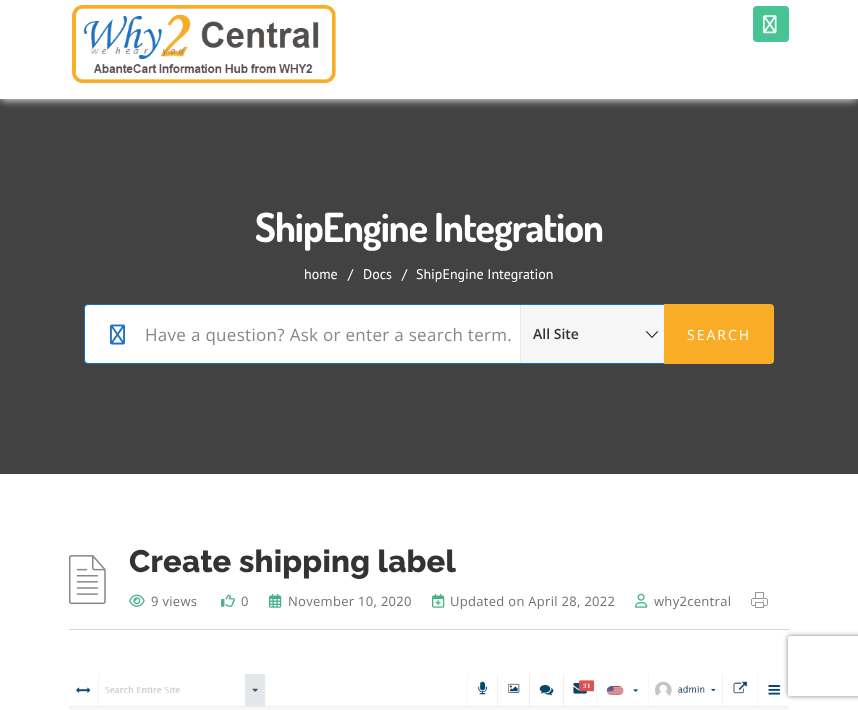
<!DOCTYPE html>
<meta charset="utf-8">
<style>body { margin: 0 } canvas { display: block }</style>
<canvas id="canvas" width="858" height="710"></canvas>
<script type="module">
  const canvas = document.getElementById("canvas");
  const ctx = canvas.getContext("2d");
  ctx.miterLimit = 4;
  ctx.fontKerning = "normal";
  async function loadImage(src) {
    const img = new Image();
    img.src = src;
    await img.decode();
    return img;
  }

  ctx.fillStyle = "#ffffff";
  ctx.fillRect(0, 0, 858, 710);
  ctx.fillStyle = "#424242";
  ctx.fillRect(0, 99, 858, 375);
  ctx.save();
  ctx.beginPath();
  ctx.rect(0, 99, 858, 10);
  ctx.clip();
  ctx.fillStyle = "#f2f2f2";
  ctx.filter = "blur(4.5px)";
  ctx.beginPath();
  ctx.rect(1, -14, 856, 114);
  ctx.fill();
  ctx.filter = "none";
  ctx.restore();
  ctx.drawImage(await loadImage("img1.png"), 72, 5, 264, 78);
  ctx.fillStyle = "#47c494";
  ctx.beginPath();
  ctx.roundRect(753, 6, 36, 36, 4);
  ctx.fill();
  ctx.drawImage(await loadImage("img2.png"), 763, 15, 14, 19);
  ctx.letterSpacing = "-1px";
  ctx.font = "bold 40px Dosis";
  ctx.fillStyle = "#ffffff";
  ctx.fillText("ShipEngine Integration", 255, 242);
  ctx.letterSpacing = "0px";
  ctx.font = "14px PT Sans";
  ctx.fillText("home", 304, 279);
  ctx.fillText("/", 348, 279);
  ctx.fillText("Docs", 363, 279);
  ctx.fillText("/", 402, 279);
  ctx.fillText("ShipEngine Integration", 416, 279);
  ctx.beginPath();
  ctx.roundRect(84.5, 304.5, 689, 59, 3.5);
  ctx.fill();
  ctx.strokeStyle = "#0d70c6";
  ctx.stroke();
  ctx.drawImage(await loadImage("img3.png"), 110, 324, 15, 21);
  ctx.letterSpacing = "0.3px";
  ctx.font = "17px Open Sans";
  ctx.fillStyle = "#888888";
  ctx.fillText("Have a question? Ask or enter a search term.", 145, 341);
  ctx.fillStyle = "#f6f6f6";
  ctx.fillRect(521, 305, 143, 58);
  ctx.drawImage(await loadImage("img4.png"), 646, 331, 12, 7);
  ctx.fillStyle = "#e9e9e9";
  ctx.fillRect(520, 305, 1, 58);
  ctx.letterSpacing = "0px";
  ctx.font = "600 14px Open Sans";
  ctx.fillStyle = "#333333";
  ctx.fillText("All Site", 533, 339);
  ctx.fillStyle = "#f9ac26";
  ctx.beginPath();
  ctx.roundRect(664, 304, 110, 60, [0, 4, 4, 0]);
  ctx.fill();
  ctx.letterSpacing = "2px";
  ctx.font = "14px Open Sans";
  ctx.fillStyle = "#ffffff";
  ctx.fillText("SEARCH", 687, 340);
  ctx.drawImage(await loadImage("img5.png"), 69, 555, 37, 50);
  ctx.letterSpacing = "0.2px";
  ctx.font = "800 31px Raleway";
  ctx.fillStyle = "#333333";
  ctx.fillText("Create shipping label", 129, 572);
  ctx.drawImage(await loadImage("img6.png"), 129, 594, 16, 13);
  ctx.letterSpacing = "0.3px";
  ctx.font = "13px Open Sans";
  ctx.fillStyle = "#727272";
  ctx.fillText("9 views", 151, 606);
  ctx.drawImage(await loadImage("img7.png"), 221, 594, 14, 13);
  ctx.fillText("0", 241, 606);
  ctx.drawImage(await loadImage("img8.png"), 269, 593, 13, 15);
  ctx.fillText("November 10, 2020", 288, 606);
  ctx.drawImage(await loadImage("img9.png"), 432, 593, 13, 15);
  ctx.fillText("Updated on April 28, 2022", 450, 606);
  ctx.drawImage(await loadImage("img10.png"), 635, 593, 13, 15);
  ctx.fillText("why2central", 654, 606);
  ctx.drawImage(await loadImage("img11.png"), 751, 592, 17, 16);
  ctx.fillStyle = "#d7d7d7";
  ctx.fillRect(69, 629, 720, 1);
  ctx.drawImage(await loadImage("img12.png"), 69, 674, 720, 36);
  ctx.save();
  ctx.beginPath();
  ctx.moveTo(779, 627);
  ctx.lineTo(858, 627);
  ctx.lineTo(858, 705);
  ctx.lineTo(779, 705);
  ctx.closePath();
  ctx.moveTo(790, 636);
  ctx.lineTo(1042, 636);
  ctx.bezierCurveTo(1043, 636, 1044, 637, 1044, 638);
  ctx.lineTo(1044, 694);
  ctx.bezierCurveTo(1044, 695, 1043, 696, 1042, 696);
  ctx.lineTo(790, 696);
  ctx.bezierCurveTo(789, 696, 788, 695, 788, 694);
  ctx.lineTo(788, 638);
  ctx.bezierCurveTo(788, 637, 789, 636, 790, 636);
  ctx.closePath();
  ctx.clip("evenodd");
  ctx.fillStyle = "#808080";
  ctx.filter = "blur(2.5px)";
  ctx.beginPath();
  ctx.roundRect(788, 636, 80, 60, 2);
  ctx.fill();
  ctx.filter = "none";
  ctx.restore();
</script>
